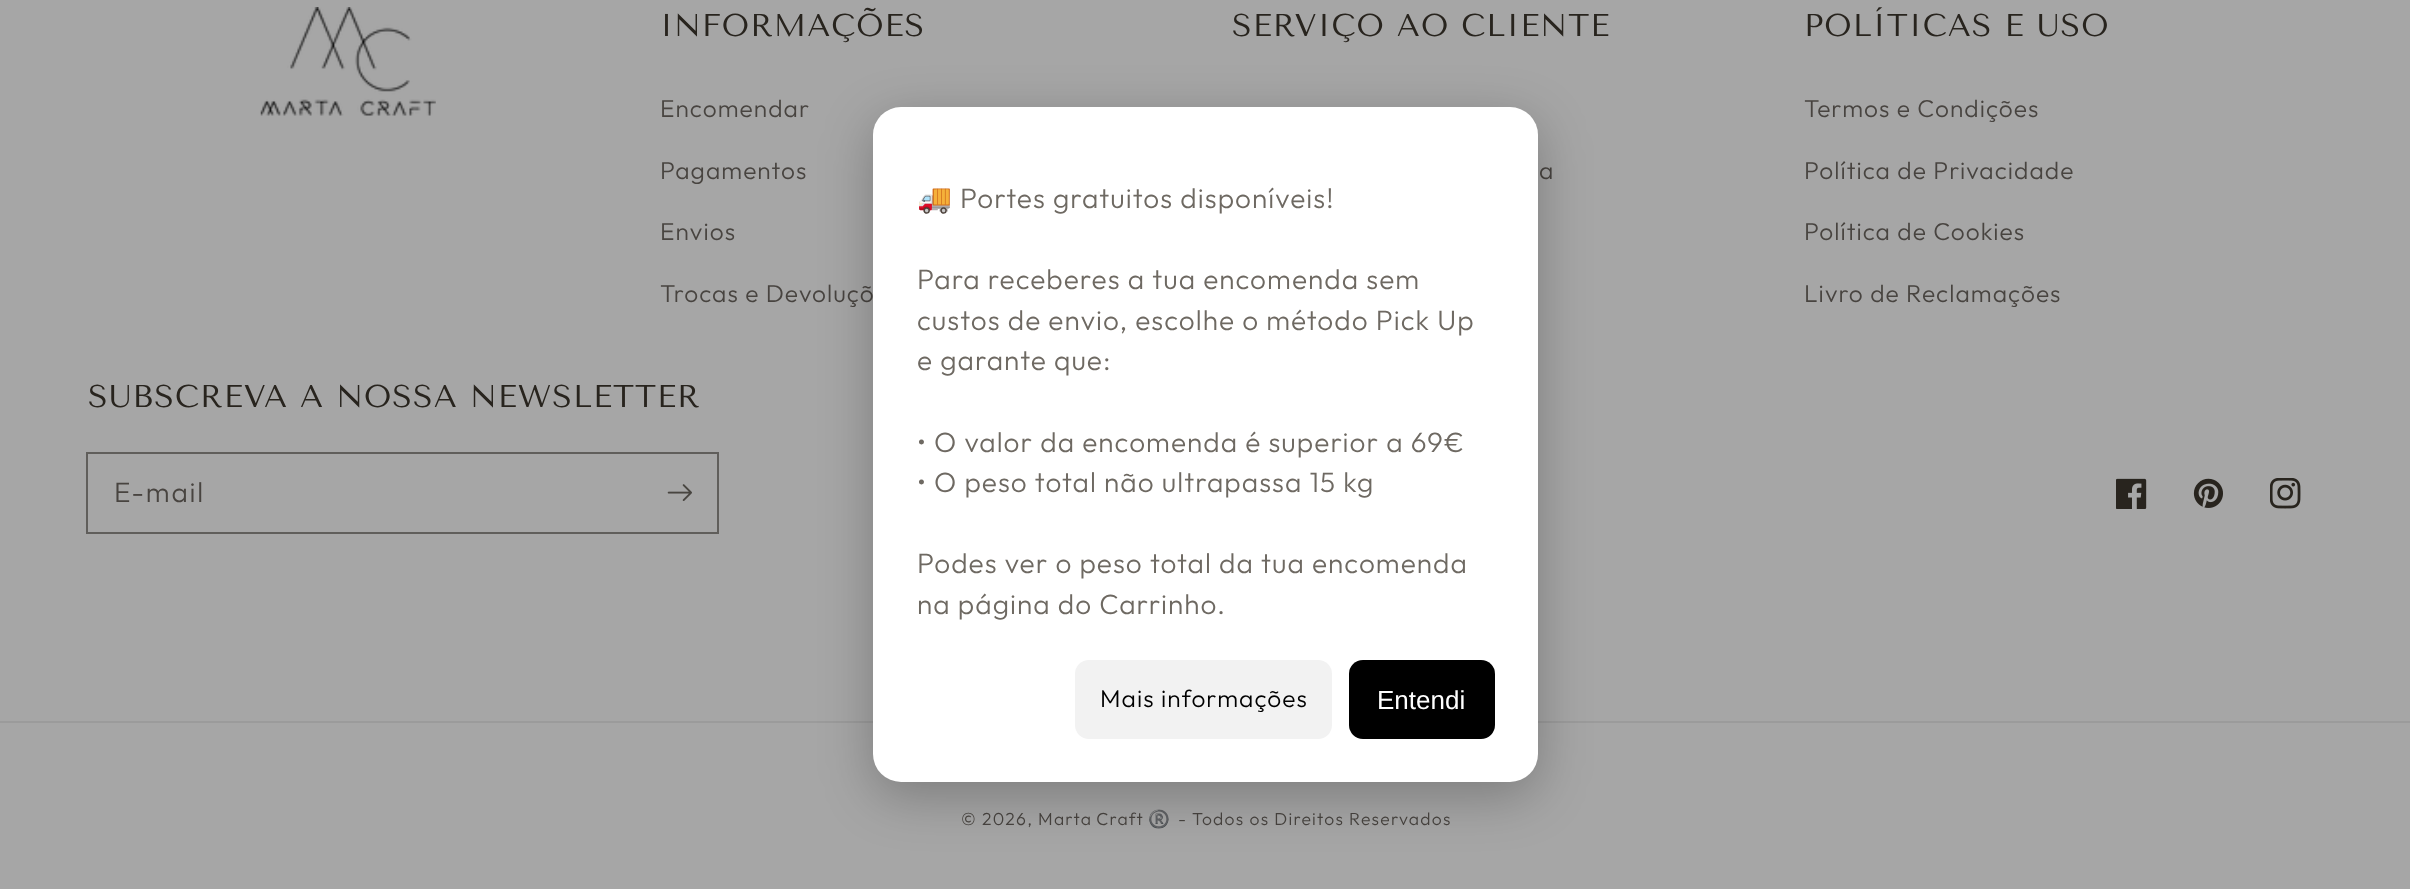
<!DOCTYPE html>
<meta charset="utf-8">
<style>body { margin: 0 } canvas { display: block }</style>
<canvas id="canvas" width="2410" height="889"></canvas>
<script type="module">
  const canvas = document.getElementById("canvas");
  const ctx = canvas.getContext("2d");
  ctx.miterLimit = 4;
  ctx.fontKerning = "normal";
  async function loadImage(src) {
    const img = new Image();
    img.src = src;
    await img.decode();
    return img;
  }

  ctx.fillStyle = "#a6a6a6";
  ctx.fillRect(0, 0, 2410, 889);
  ctx.drawImage(await loadImage("img1.png"), 260, 7, 176, 109);
  ctx.letterSpacing = "1.05px";
  ctx.font = "31.5px Tenor Sans";
  ctx.fillStyle = "#28241e";
  ctx.fillText("INFORMAÇÕES", 660, 36);
  ctx.font = "300 24.5px Outfit";
  ctx.fillStyle = "#484440";
  ctx.fillText("Encomendar", 660, 117);
  ctx.fillText("Pagamentos", 660, 179);
  ctx.fillText("Envios", 660, 240);
  ctx.fillText("Trocas e Devoluçõ", 660, 302);
  ctx.font = "31.5px Tenor Sans";
  ctx.fillStyle = "#28241e";
  ctx.fillText("SERVIÇO AO CLIENTE", 1232, 36);
  ctx.font = "300 24.5px Outfit";
  ctx.fillStyle = "#484440";
  ctx.fillText("a", 1539, 179);
  ctx.font = "31.5px Tenor Sans";
  ctx.fillStyle = "#28241e";
  ctx.fillText("POLÍTICAS E USO", 1804, 36);
  ctx.font = "300 24.5px Outfit";
  ctx.fillStyle = "#484440";
  ctx.fillText("Termos e Condições", 1804, 117);
  ctx.fillText("Política de Privacidade", 1804, 179);
  ctx.fillText("Política de Cookies", 1804, 240);
  ctx.fillText("Livro de Reclamações", 1804, 302);
  ctx.font = "31.5px Tenor Sans";
  ctx.fillStyle = "#28241e";
  ctx.fillText("SUBSCREVA A NOSSA NEWSLETTER", 88, 407);
  ctx.strokeStyle = "#605e5b";
  ctx.lineWidth = 2;
  ctx.strokeRect(87, 453, 631, 80);
  ctx.letterSpacing = "1.75px";
  ctx.font = "300 28px Outfit";
  ctx.fillStyle = "#484440";
  ctx.fillText("E-mail", 114, 502);
  ctx.drawImage(await loadImage("img2.png"), 667, 484, 25, 17);
  ctx.drawImage(await loadImage("img3.png"), 2116, 478, 31, 31);
  ctx.drawImage(await loadImage("img4.png"), 2193, 478, 30, 30);
  ctx.drawImage(await loadImage("img5.png"), 2270, 478, 31, 31);
  ctx.fillStyle = "#9b9b9b";
  ctx.fillRect(0, 721, 2410, 2);
  ctx.letterSpacing = "1.25px";
  ctx.font = "300 17.5px Outfit";
  ctx.fillStyle = "#484440";
  ctx.fillText("© 2026,", 961, 825);
  ctx.wordSpacing = "-1px";
  ctx.fillText("Marta Craft", 1038, 825);
  ctx.wordSpacing = "0px";
  ctx.font = "17.5px Noto Color Emoji";
  ctx.fillText("®️", 1148, 825);
  ctx.font = "300 17.5px Outfit";
  ctx.fillText("- Todos os Direitos Reservados", 1178, 825);
  ctx.fillStyle = "rgba(0, 0, 0, 0.25)";
  ctx.filter = "blur(26px)";
  ctx.beginPath();
  ctx.roundRect(873, 121, 665, 675, 28);
  ctx.fill();
  ctx.filter = "none";
  ctx.fillStyle = "#ffffff";
  ctx.beginPath();
  ctx.roundRect(873, 107, 665, 675, 28);
  ctx.fill();
  ctx.letterSpacing = "1.05px";
  ctx.font = "28px Noto Color Emoji";
  ctx.fillStyle = "#6e6962";
  ctx.fillText("🚚", 917, 208);
  ctx.font = "300 28px Outfit";
  ctx.fillText("Portes gratuitos disponíveis!", 960, 208);
  ctx.fillText("Para receberes a tua encomenda sem", 917, 289);
  ctx.fillText("custos de envio, escolhe o método Pick Up", 917, 330);
  ctx.fillText("e garante que:", 917, 370);
  ctx.fillText("• O valor da encomenda é superior a 69€", 917, 452);
  ctx.fillText("• O peso total não ultrapassa 15 kg", 917, 492);
  ctx.fillText("Podes ver o peso total da tua encomenda", 917, 573);
  ctx.fillText("na página do Carrinho.", 917, 614);
  ctx.fillStyle = "#f2f2f2";
  ctx.beginPath();
  ctx.roundRect(1075, 660, 257, 79, 14);
  ctx.fill();
  ctx.font = "300 24.5px Outfit";
  ctx.fillStyle = "#000000";
  ctx.fillText("Mais informações", 1100, 707);
  ctx.beginPath();
  ctx.roundRect(1349, 660, 146, 79, 14);
  ctx.fill();
  ctx.letterSpacing = "0px";
  ctx.font = "26px Liberation Sans";
  ctx.fillStyle = "#ffffff";
  ctx.fillText("Entendi", 1377, 709);
</script>
